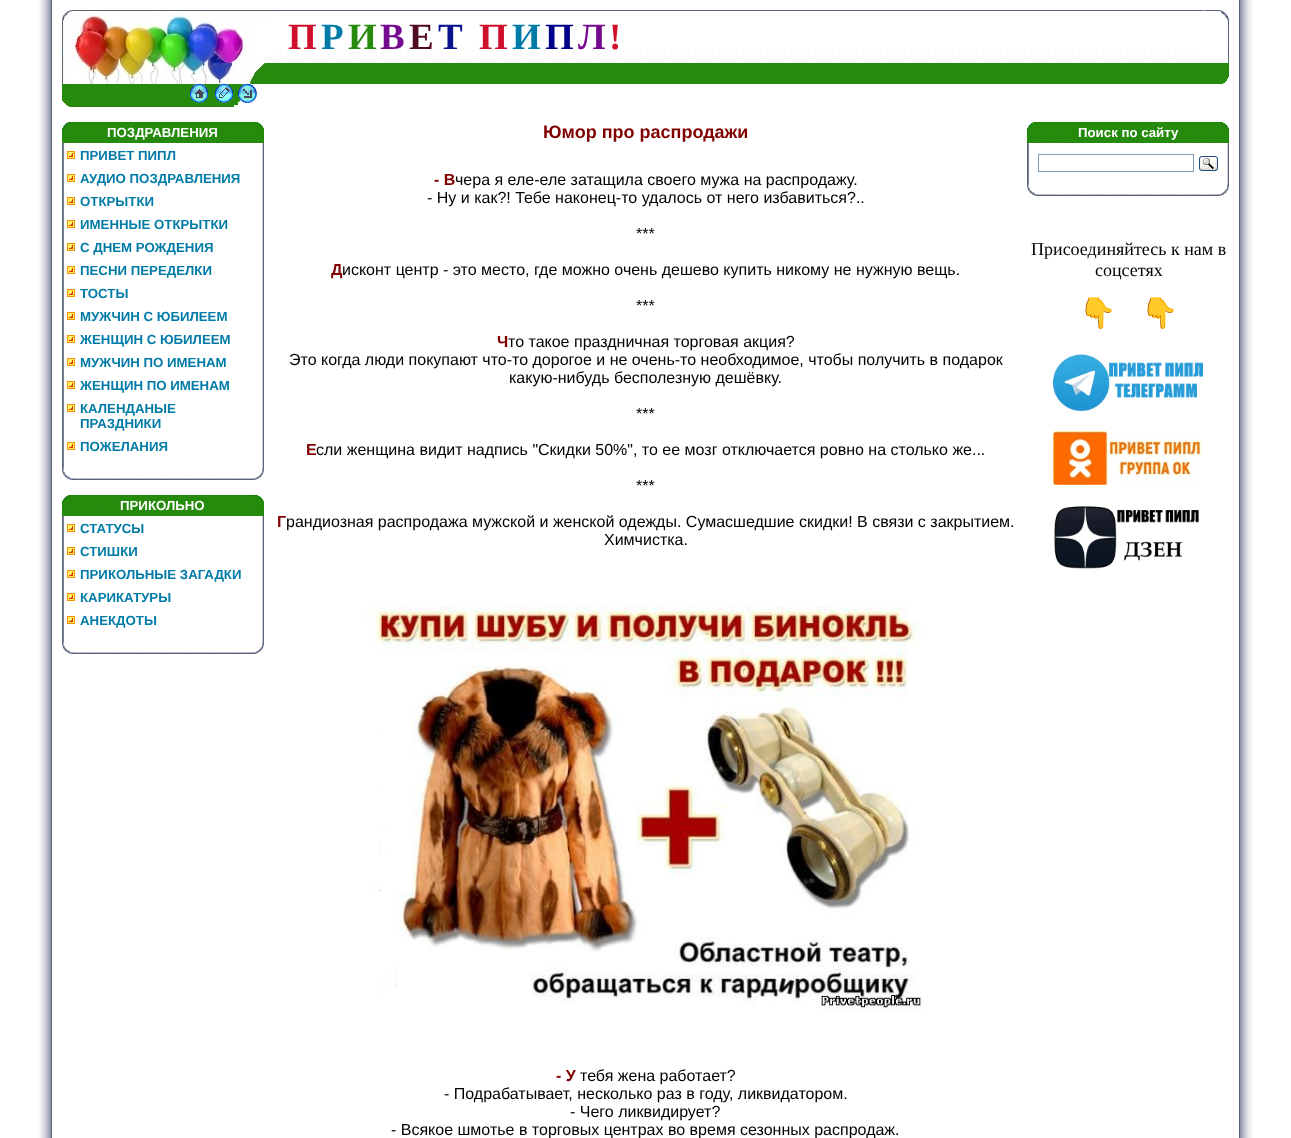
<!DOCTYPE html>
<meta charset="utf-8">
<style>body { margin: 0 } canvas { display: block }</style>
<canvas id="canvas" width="1291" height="1138"></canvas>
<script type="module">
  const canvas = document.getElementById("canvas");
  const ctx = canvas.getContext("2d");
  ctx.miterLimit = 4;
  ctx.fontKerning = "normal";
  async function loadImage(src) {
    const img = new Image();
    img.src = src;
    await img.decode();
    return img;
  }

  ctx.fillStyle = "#ffffff";
  ctx.fillRect(0, 0, 1291, 1138);
  ctx.drawImage(await loadImage("img1.png"), 38, 0, 14, 1138);
  ctx.drawImage(await loadImage("img2.png"), 62, 10, 212, 53);
  ctx.drawImage(await loadImage("img3.png"), 274, 10, 922, 49);
  ctx.font = "bold 37px Liberation Serif";
  ctx.fillStyle = "#d00f2c";
  ctx.fillText("П", 288, 49);
  ctx.fillStyle = "#007ba7";
  ctx.fillText("Р", 321, 49);
  ctx.fillStyle = "#268b0d";
  ctx.fillText("И", 348, 49);
  ctx.fillStyle = "#74098f";
  ctx.fillText("В", 380, 49);
  ctx.fillStyle = "#510b1f";
  ctx.fillText("Е", 409, 49);
  ctx.fillStyle = "#0a138e";
  ctx.fillText("Т", 438, 49);
  ctx.fillStyle = "#d00f2c";
  ctx.fillText("П", 479, 49);
  ctx.fillStyle = "#007ba7";
  ctx.fillText("И", 512, 49);
  ctx.fillStyle = "#00008b";
  ctx.fillText("П", 545, 49);
  ctx.fillStyle = "#74098f";
  ctx.fillText("Л", 578, 49);
  ctx.fillStyle = "#d00f2c";
  ctx.fillText("!", 609, 49);
  ctx.drawImage(await loadImage("img4.png"), 1196, 10, 33, 53);
  ctx.drawImage(await loadImage("img5.png"), 62, 63, 212, 21);
  ctx.fillStyle = "#268b0d";
  ctx.fillRect(274, 63, 922, 21);
  ctx.drawImage(await loadImage("img6.png"), 1196, 63, 33, 21);
  ctx.drawImage(await loadImage("img7.png"), 62, 84, 127, 23);
  ctx.drawImage(await loadImage("img8.png"), 189, 84, 20, 23);
  ctx.fillRect(209, 84, 5, 23);
  ctx.drawImage(await loadImage("img9.png"), 214, 84, 20, 23);
  ctx.fillRect(234, 84, 4, 21);
  ctx.drawImage(await loadImage("img10.png"), 238, 84, 19, 19);
  ctx.drawImage(await loadImage("img11.png"), 62, 122, 202, 21);
  ctx.font = "bold 13.25px Liberation Sans";
  ctx.fillStyle = "#ffffff";
  ctx.fillText("ПОЗДРАВЛЕНИЯ", 107, 137);
  ctx.drawImage(await loadImage("img12.png"), 62, 143, 202, 324);
  ctx.drawImage(await loadImage("img13.png"), 67, 151, 8, 8);
  ctx.fillStyle = "#007ba7";
  ctx.fillText("ПРИВЕТ ПИПЛ", 80, 160);
  ctx.drawImage(await loadImage("img13.png"), 67, 174, 8, 8);
  ctx.fillText("АУДИО ПОЗДРАВЛЕНИЯ", 80, 183);
  ctx.drawImage(await loadImage("img13.png"), 67, 197, 8, 8);
  ctx.fillText("ОТКРЫТКИ", 80, 206);
  ctx.drawImage(await loadImage("img13.png"), 67, 220, 8, 8);
  ctx.fillText("ИМЕННЫЕ ОТКРЫТКИ", 80, 229);
  ctx.drawImage(await loadImage("img13.png"), 67, 243, 8, 8);
  ctx.fillText("С ДНЕМ РОЖДЕНИЯ", 80, 252);
  ctx.drawImage(await loadImage("img13.png"), 67, 266, 8, 8);
  ctx.fillText("ПЕСНИ ПЕРЕДЕЛКИ", 80, 275);
  ctx.drawImage(await loadImage("img13.png"), 67, 289, 8, 8);
  ctx.fillText("ТОСТЫ", 80, 298);
  ctx.drawImage(await loadImage("img13.png"), 67, 312, 8, 8);
  ctx.fillText("МУЖЧИН С ЮБИЛЕЕМ", 80, 321);
  ctx.drawImage(await loadImage("img13.png"), 67, 335, 8, 8);
  ctx.fillText("ЖЕНЩИН С ЮБИЛЕЕМ", 80, 344);
  ctx.drawImage(await loadImage("img13.png"), 67, 358, 8, 8);
  ctx.fillText("МУЖЧИН ПО ИМЕНАМ", 80, 367);
  ctx.drawImage(await loadImage("img13.png"), 67, 381, 8, 8);
  ctx.fillText("ЖЕНЩИН ПО ИМЕНАМ", 80, 390);
  ctx.drawImage(await loadImage("img13.png"), 67, 404, 8, 8);
  ctx.fillText("КАЛЕНДАНЫЕ", 80, 413);
  ctx.fillText("ПРАЗДНИКИ", 80, 428);
  ctx.drawImage(await loadImage("img13.png"), 67, 442, 8, 8);
  ctx.fillText("ПОЖЕЛАНИЯ", 80, 451);
  ctx.drawImage(await loadImage("img14.png"), 62, 467, 202, 13);
  ctx.drawImage(await loadImage("img11.png"), 62, 495, 202, 21);
  ctx.fillStyle = "#ffffff";
  ctx.fillText("ПРИКОЛЬНО", 120, 510);
  ctx.drawImage(await loadImage("img15.png"), 62, 516, 202, 125);
  ctx.drawImage(await loadImage("img13.png"), 67, 524, 8, 8);
  ctx.fillStyle = "#007ba7";
  ctx.fillText("СТАТУСЫ", 80, 533);
  ctx.drawImage(await loadImage("img13.png"), 67, 547, 8, 8);
  ctx.fillText("СТИШКИ", 80, 556);
  ctx.drawImage(await loadImage("img13.png"), 67, 570, 8, 8);
  ctx.fillText("ПРИКОЛЬНЫЕ ЗАГАДКИ", 80, 579);
  ctx.drawImage(await loadImage("img13.png"), 67, 593, 8, 8);
  ctx.fillText("КАРИКАТУРЫ", 80, 602);
  ctx.drawImage(await loadImage("img13.png"), 67, 616, 8, 8);
  ctx.fillText("АНЕКДОТЫ", 80, 625);
  ctx.drawImage(await loadImage("img14.png"), 62, 641, 202, 13);
  ctx.font = "bold 18px Liberation Sans";
  ctx.fillStyle = "#800000";
  ctx.fillText("Юмор про распродажи", 543, 138);
  ctx.font = "bold 16px Liberation Sans";
  ctx.fillText("- В", 434, 185);
  ctx.font = "16px Liberation Sans";
  ctx.fillStyle = "#000000";
  ctx.fillText("чера я еле-еле затащила своего мужа на распродажу.", 455, 185);
  ctx.fillText("- Ну и как?! Тебе наконец-то удалось от него избавиться?..", 427, 203);
  ctx.fillText("***", 636, 239);
  ctx.font = "bold 16px Liberation Sans";
  ctx.fillStyle = "#800000";
  ctx.fillText("Д", 331, 275);
  ctx.font = "16px Liberation Sans";
  ctx.fillStyle = "#000000";
  ctx.fillText("исконт центр - это место, где можно очень дешево купить никому не нужную вещь.", 342, 275);
  ctx.fillText("***", 636, 311);
  ctx.font = "bold 16px Liberation Sans";
  ctx.fillStyle = "#800000";
  ctx.fillText("Ч", 497, 347);
  ctx.font = "16px Liberation Sans";
  ctx.fillStyle = "#000000";
  ctx.fillText("то такое праздничная торговая акция?", 508, 347);
  ctx.fillText("Это когда люди покупают что-то дорогое и не очень-то необходимое, чтобы получить в подарок", 289, 365);
  ctx.fillText("какую-нибудь бесполезную дешёвку.", 509, 383);
  ctx.fillText("***", 636, 419);
  ctx.font = "bold 16px Liberation Sans";
  ctx.fillStyle = "#800000";
  ctx.fillText("Е", 306, 455);
  ctx.font = "16px Liberation Sans";
  ctx.fillStyle = "#000000";
  ctx.fillText("сли женщина видит надпись \"Скидки 50%\", то ее мозг отключается ровно на столько же...", 316, 455);
  ctx.fillText("***", 636, 491);
  ctx.font = "bold 16px Liberation Sans";
  ctx.fillStyle = "#800000";
  ctx.fillText("Г", 277, 527);
  ctx.font = "16px Liberation Sans";
  ctx.fillStyle = "#000000";
  ctx.fillText("рандиозная распродажа мужской и женской одежды. Сумасшедшие скидки! В связи с закрытием.", 286, 527);
  ctx.fillText("Химчистка.", 604, 545);
  ctx.drawImage(await loadImage("img16.png"), 366, 606, 556, 404);
  ctx.font = "bold 16px Liberation Sans";
  ctx.fillStyle = "#800000";
  ctx.fillText("- У", 556, 1081);
  ctx.font = "16px Liberation Sans";
  ctx.fillStyle = "#000000";
  ctx.fillText("тебя жена работает?", 580, 1081);
  ctx.fillText("- Подрабатывает, несколько раз в году, ликвидатором.", 444, 1099);
  ctx.fillText("- Чего ликвидирует?", 570, 1117);
  ctx.fillText("- Всякое шмотье в торговых центрах во время сезонных распродаж.", 391, 1135);
  ctx.drawImage(await loadImage("img11.png"), 1027, 122, 202, 21);
  ctx.font = "bold 13.25px Liberation Sans";
  ctx.fillStyle = "#ffffff";
  ctx.fillText("Поиск по сайту", 1078, 137);
  ctx.drawImage(await loadImage("img17.png"), 1027, 143, 202, 40);
  ctx.strokeStyle = "#7f9db9";
  ctx.strokeRect(1038.5, 154.5, 155, 17);
  ctx.drawImage(await loadImage("img18.png"), 1199, 156, 19, 15);
  ctx.drawImage(await loadImage("img14.png"), 1027, 183, 202, 13);
  ctx.font = "18px Liberation Serif";
  ctx.fillStyle = "#000000";
  ctx.fillText("Присоединяйтесь к нам в", 1031, 255);
  ctx.fillText("соцсетях", 1095, 276);
  ctx.font = "30px Noto Color Emoji";
  ctx.fillText("👇", 1079, 323);
  ctx.fillText("👇", 1141, 323);
  ctx.drawImage(await loadImage("img19.png"), 1053, 354, 150, 58);
  ctx.drawImage(await loadImage("img20.png"), 1053, 431, 149, 54);
  ctx.drawImage(await loadImage("img21.png"), 1054, 506, 145, 63);
  ctx.drawImage(await loadImage("img22.png"), 1239, 0, 14, 1138);
</script>
